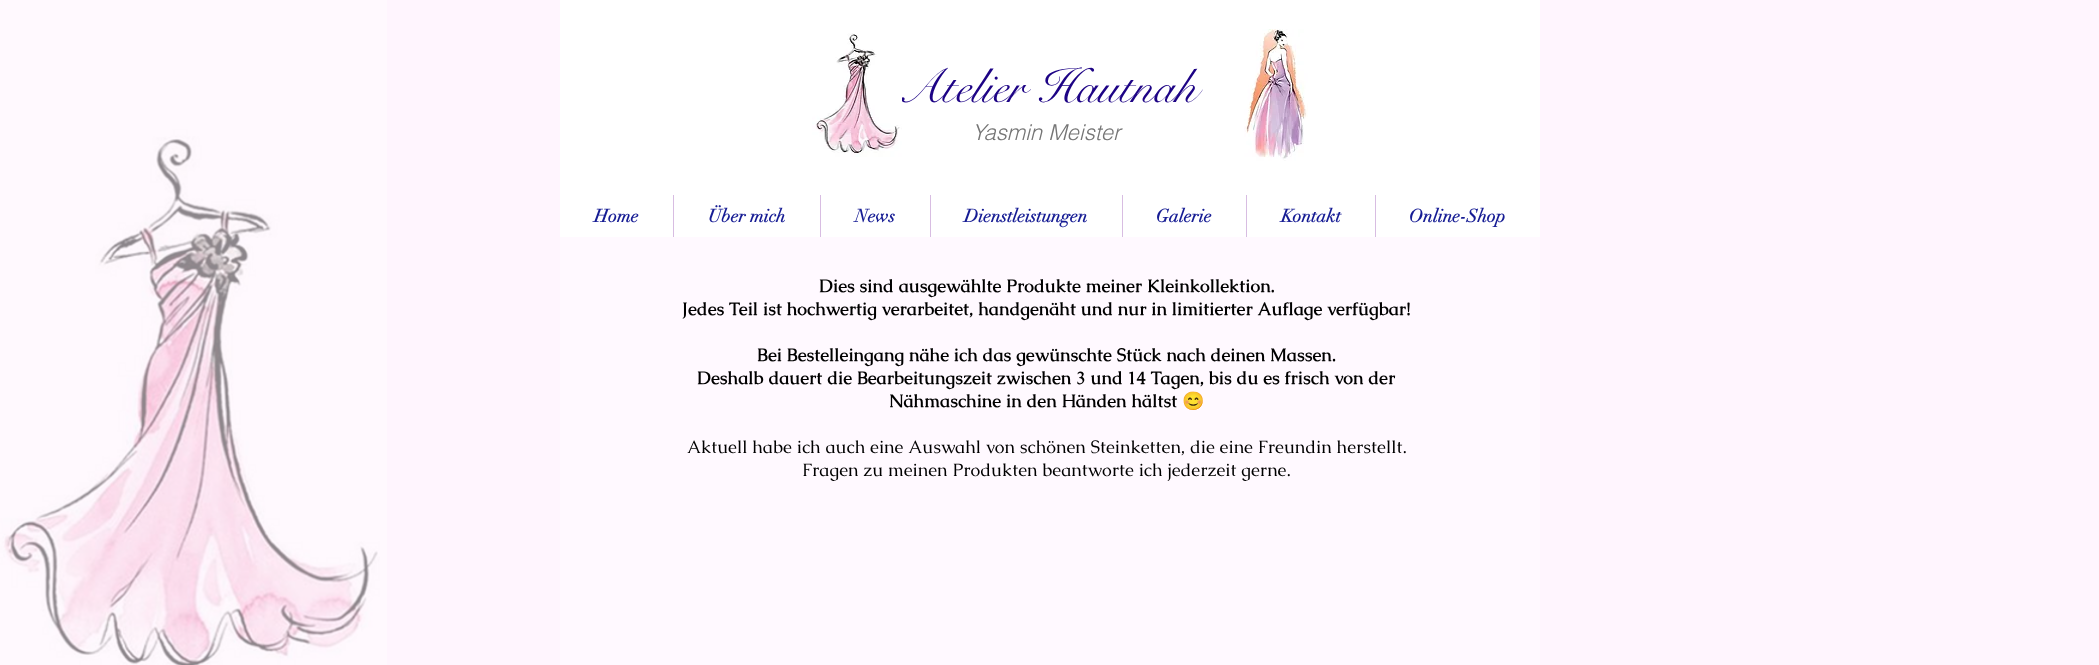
<!DOCTYPE html>
<meta charset="utf-8">
<style>body { margin: 0 } canvas { display: block }</style>
<canvas id="canvas" width="2099" height="665"></canvas>
<script type="module">
  const canvas = document.getElementById("canvas");
  const ctx = canvas.getContext("2d");
  ctx.miterLimit = 4;
  ctx.fontKerning = "normal";
  async function loadImage(src) {
    const img = new Image();
    img.src = src;
    await img.decode();
    return img;
  }

  ctx.fillStyle = "#fff5fe";
  ctx.fillRect(0, 0, 2099, 665);
  ctx.drawImage(await loadImage("img1.png"), 0, 0, 387, 665);
  ctx.fillStyle = "#ffffff";
  ctx.fillRect(560, 0, 980, 237);
  ctx.font = "48px 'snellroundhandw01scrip'";
  ctx.fillStyle = "#1d0385";
  ctx.fillText("Atelier Hautnah", 897, 102);
  ctx.drawImage(await loadImage("img2.png"), 812, 33, 90, 124);
  ctx.font = "italic 300 22px helvetica";
  ctx.fillStyle = "#757575";
  ctx.fillText("Yasmin Meister", 972, 140);
  ctx.drawImage(await loadImage("img3.png"), 1244, 29, 64, 132);
  ctx.font = "bold 18px didot";
  ctx.fillStyle = "#161c94";
  ctx.fillText("Home", 594, 222);
  ctx.fillStyle = "#d8bde2";
  ctx.fillRect(673, 195, 1, 42);
  ctx.fillStyle = "#161c94";
  ctx.fillText("Über mich", 708, 222);
  ctx.fillStyle = "#d8bde2";
  ctx.fillRect(820, 195, 1, 42);
  ctx.fillStyle = "#161c94";
  ctx.fillText("News", 855, 222);
  ctx.fillStyle = "#d8bde2";
  ctx.fillRect(930, 195, 1, 42);
  ctx.fillStyle = "#161c94";
  ctx.fillText("Dienstleistungen", 964, 222);
  ctx.fillStyle = "#d8bde2";
  ctx.fillRect(1122, 195, 1, 42);
  ctx.fillStyle = "#161c94";
  ctx.fillText("Galerie", 1156, 222);
  ctx.fillStyle = "#d8bde2";
  ctx.fillRect(1246, 195, 1, 42);
  ctx.fillStyle = "#161c94";
  ctx.fillText("Kontakt", 1281, 222);
  ctx.fillStyle = "#d8bde2";
  ctx.fillRect(1375, 195, 1, 42);
  ctx.fillStyle = "#161c94";
  ctx.fillText("Online-Shop", 1409, 222);
  ctx.fillStyle = "#fff9ff";
  ctx.fillRect(560, 237, 980, 428);
  ctx.font = "bold 18px Caudex";
  ctx.fillStyle = "#000000";
  ctx.fillText("Dies sind ausgewählte Produkte meiner Kleinkollektion.", 819, 292);
  ctx.fillText("Jedes Teil ist hochwertig verarbeitet, handgenäht und nur in limitierter Auflage verfügbar!", 682, 315);
  ctx.fillText("Bei Bestelleingang nähe ich das gewünschte Stück nach deinen Massen.", 757, 361);
  ctx.fillText("Deshalb dauert die Bearbeitungszeit zwischen 3 und 14 Tagen, bis du es frisch von der", 697, 384);
  ctx.fillText("Nähmaschine in den Händen hältst", 889, 407);
  ctx.font = "bold 18px Noto Color Emoji";
  ctx.fillText("😊", 1182, 407);
  ctx.font = "18px Caudex";
  ctx.fillText("Aktuell habe ich auch eine Auswahl von schönen Steinketten, die eine Freundin herstellt.", 687, 453);
  ctx.fillText("Fragen zu meinen Produkten beantworte ich jederzeit gerne.", 802, 476);
</script>
